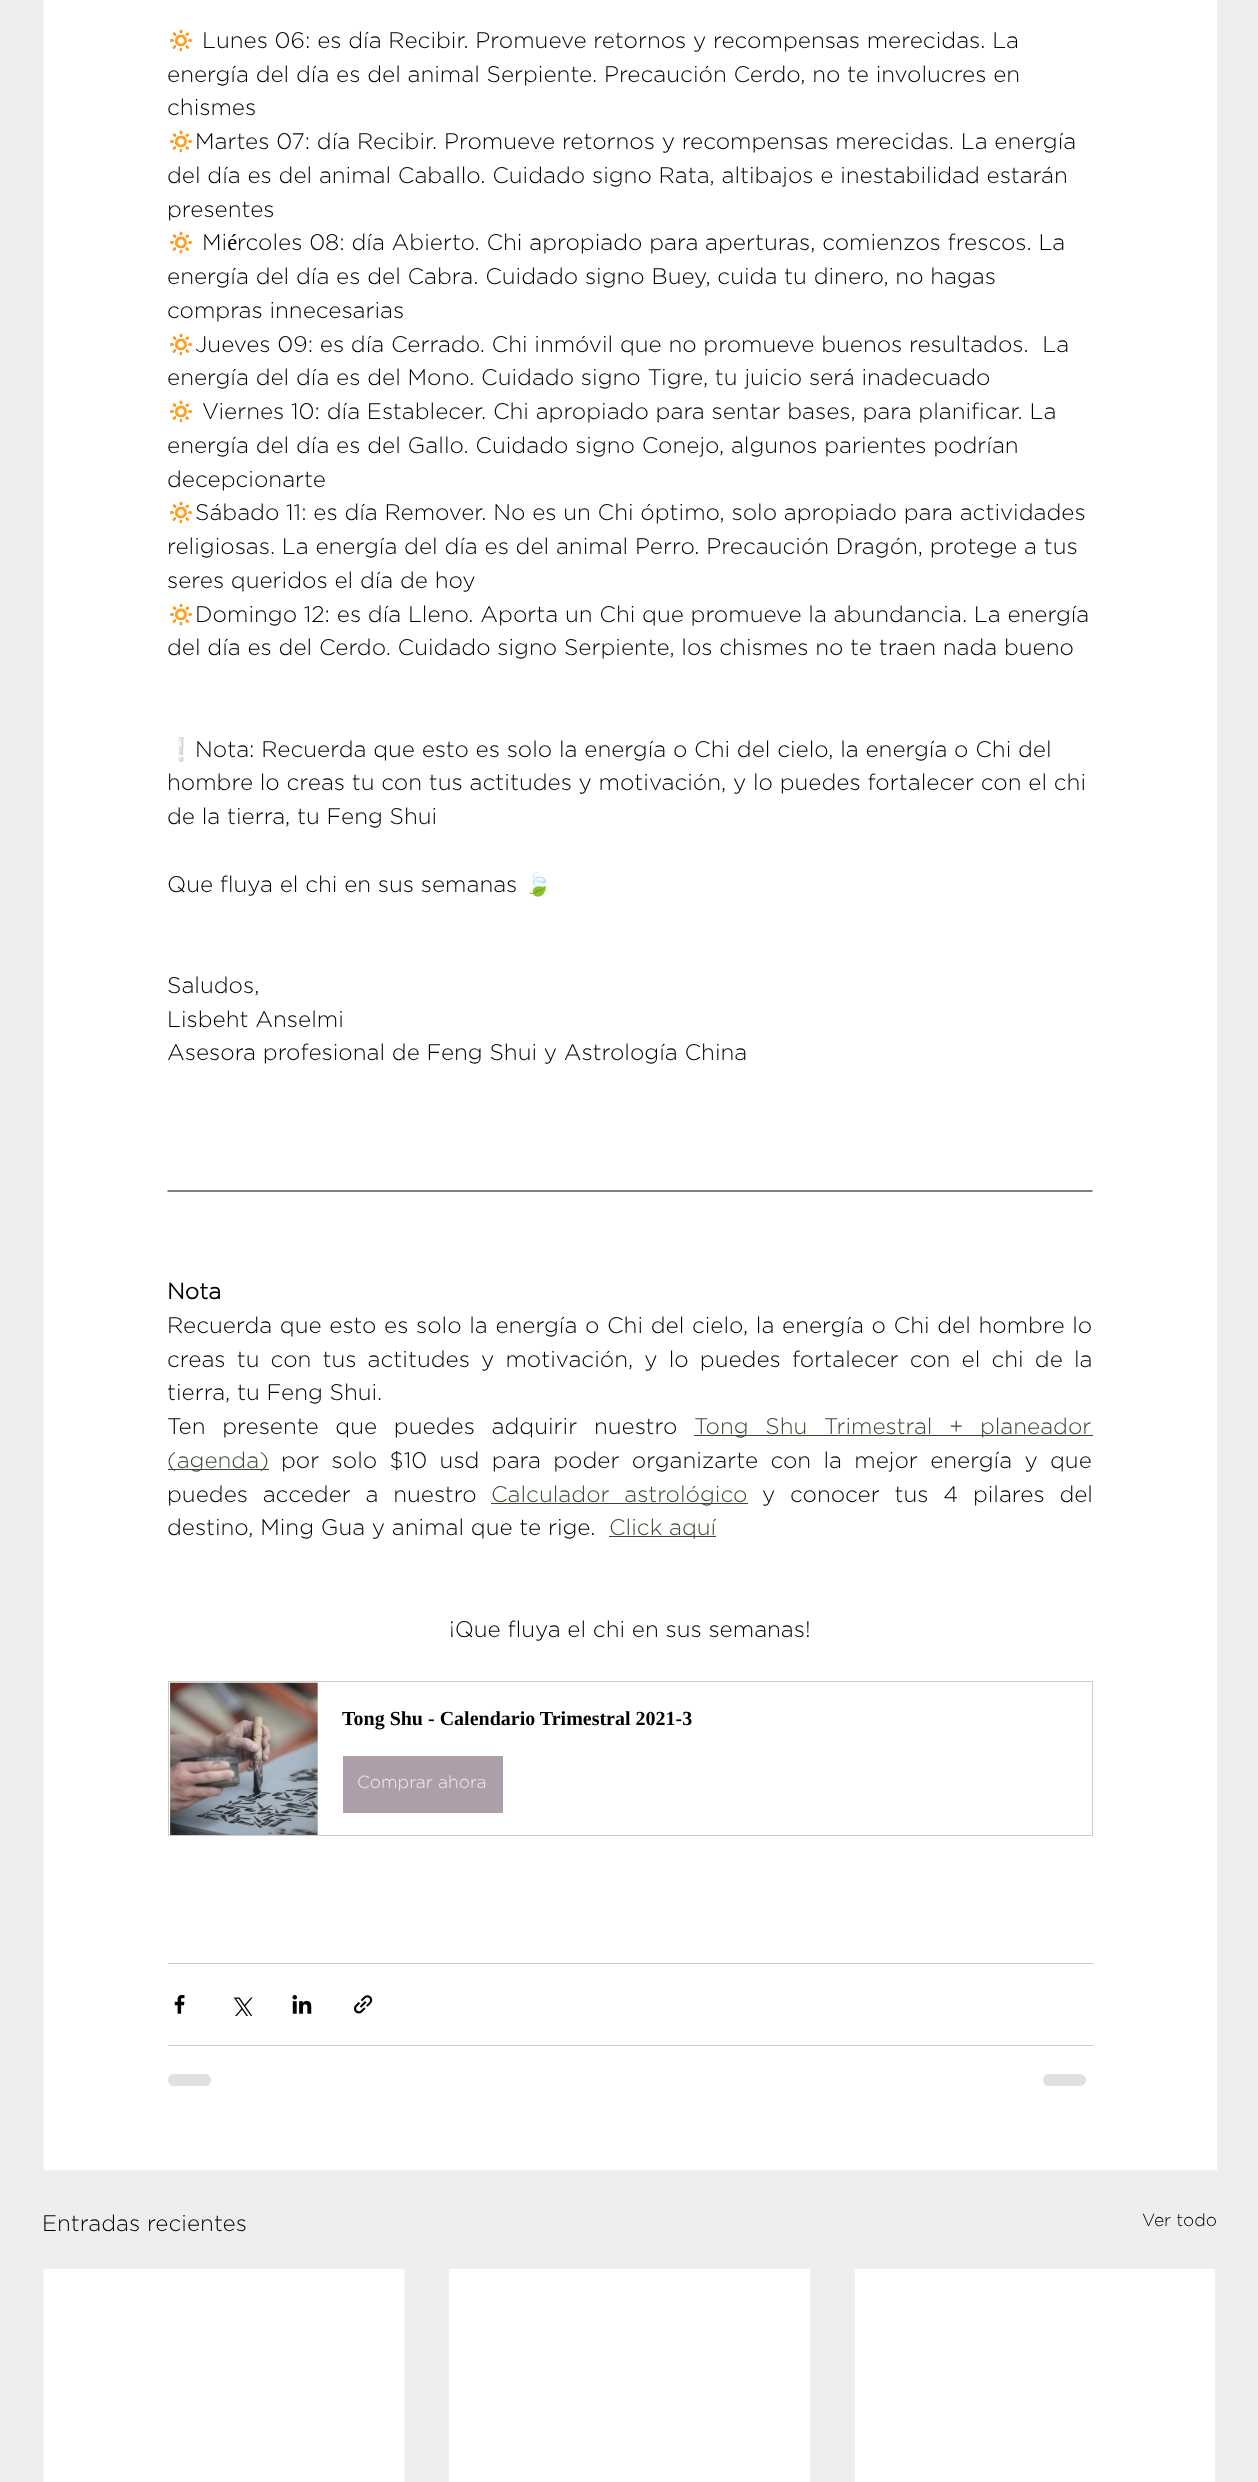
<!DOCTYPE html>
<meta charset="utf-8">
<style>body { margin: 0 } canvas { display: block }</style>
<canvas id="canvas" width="1258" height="2482"></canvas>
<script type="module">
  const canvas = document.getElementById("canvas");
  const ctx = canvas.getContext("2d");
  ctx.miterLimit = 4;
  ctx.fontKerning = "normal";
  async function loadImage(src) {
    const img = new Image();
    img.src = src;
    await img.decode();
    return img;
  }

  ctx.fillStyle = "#ecefec";
  ctx.fillRect(0, 0, 1258, 2482);
  ctx.fillStyle = "#ffffff";
  ctx.beginPath();
  ctx.rect(43.5, -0.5, 1174, 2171);
  ctx.fill();
  ctx.strokeStyle = "#f1f3f1";
  ctx.stroke();
  ctx.font = "22.5px Noto Color Emoji";
  ctx.fillStyle = "#000000";
  ctx.fillText("🔅", 167, 48);
  ctx.font = "300 22.5px Gotham";
  ctx.fillText("Lunes 06: es día Recibir. Promueve retornos y recompensas merecidas. La", 202, 48);
  ctx.fillText("energía del día es del animal Serpiente. Precaución Cerdo, no te involucres en", 167, 82);
  ctx.fillText("chismes", 167, 115);
  ctx.font = "22.5px Noto Color Emoji";
  ctx.fillText("🔅", 167, 149);
  ctx.font = "300 22.5px Gotham";
  ctx.fillText("Martes 07: día Recibir. Promueve retornos y recompensas merecidas. La energía", 195, 149);
  ctx.fillText("del día es del animal Caballo. Cuidado signo Rata, altibajos e inestabilidad estarán", 167, 183);
  ctx.fillText("presentes", 167, 217);
  ctx.font = "22.5px Noto Color Emoji";
  ctx.fillText("🔅", 167, 250);
  ctx.font = "300 22.5px Gotham";
  ctx.fillText("Miércoles 08: día Abierto. Chi apropiado para aperturas, comienzos frescos. La", 202, 250);
  ctx.fillText("energía del día es del Cabra. Cuidado signo Buey, cuida tu dinero, no hagas", 167, 284);
  ctx.fillText("compras innecesarias", 167, 318);
  ctx.font = "22.5px Noto Color Emoji";
  ctx.fillText("🔅", 167, 352);
  ctx.font = "300 22.5px Gotham";
  ctx.fillText("Jueves 09: es día Cerrado. Chi inmóvil que no promueve buenos resultados.  La", 195, 352);
  ctx.fillText("energía del día es del Mono. Cuidado signo Tigre, tu juicio será inadecuado", 167, 385);
  ctx.font = "22.5px Noto Color Emoji";
  ctx.fillText("🔅", 167, 419);
  ctx.font = "300 22.5px Gotham";
  ctx.fillText("Viernes 10: día Establecer. Chi apropiado para sentar bases, para planificar. La", 202, 419);
  ctx.fillText("energía del día es del Gallo. Cuidado signo Conejo, algunos parientes podrían", 167, 453);
  ctx.fillText("decepcionarte", 167, 487);
  ctx.font = "22.5px Noto Color Emoji";
  ctx.fillText("🔅", 167, 520);
  ctx.font = "300 22.5px Gotham";
  ctx.fillText("Sábado 11: es día Remover. No es un Chi óptimo, solo apropiado para actividades", 195, 520);
  ctx.fillText("religiosas. La energía del día es del animal Perro. Precaución Dragón, protege a tus", 167, 554);
  ctx.fillText("seres queridos el día de hoy", 167, 588);
  ctx.font = "22.5px Noto Color Emoji";
  ctx.fillText("🔅", 167, 622);
  ctx.font = "300 22.5px Gotham";
  ctx.fillText("Domingo 12: es día Lleno. Aporta un Chi que promueve la abundancia. La energía", 195, 622);
  ctx.fillText("del día es del Cerdo. Cuidado signo Serpiente, los chismes no te traen nada bueno", 167, 655);
  ctx.font = "22.5px Noto Color Emoji";
  ctx.fillText("❕", 167, 757);
  ctx.font = "300 22.5px Gotham";
  ctx.fillText("Nota: Recuerda que esto es solo la energía o Chi del cielo, la energía o Chi del", 195, 757);
  ctx.fillText("hombre lo creas tu con tus actitudes y motivación, y lo puedes fortalecer con el chi", 167, 790);
  ctx.fillText("de la tierra, tu Feng Shui", 167, 824);
  ctx.fillText("Que fluya el chi en sus semanas", 167, 892);
  ctx.font = "22.5px Noto Color Emoji";
  ctx.fillText("🍃", 524, 892);
  ctx.font = "300 22.5px Gotham";
  ctx.fillText("Saludos,", 167, 993);
  ctx.fillText("Lisbeht Anselmi", 167, 1027);
  ctx.fillText("Asesora profesional de Feng Shui y Astrología China", 167, 1060);
  ctx.beginPath();
  ctx.moveTo(167.5, 1191);
  ctx.lineTo(1092.5, 1191);
  ctx.strokeStyle = "#000000";
  ctx.lineWidth = 1.2;
  ctx.stroke();
  ctx.font = "bold 22.5px Gotham";
  ctx.fillText("Nota", 167, 1299);
  ctx.wordSpacing = "0.9px";
  ctx.font = "300 22.5px Gotham";
  ctx.fillText("Recuerda que esto es solo la energía o Chi del cielo, la energía o Chi del hombre lo", 167, 1333);
  ctx.wordSpacing = "4.4px";
  ctx.fillText("creas tu con tus actitudes y motivación, y lo puedes fortalecer con el chi de la", 167, 1367);
  ctx.wordSpacing = "0px";
  ctx.fillText("tierra, tu Feng Shui.", 167, 1400);
  ctx.wordSpacing = "10px";
  ctx.fillText("Ten presente que puedes adquirir nuestro", 167, 1434);
  ctx.fillStyle = "#394931";
  ctx.fillRect(694, 1435, 399, 1);
  ctx.fillText("Tong Shu Trimestral + planeador", 694, 1434);
  ctx.fillRect(168, 1469, 101, 1);
  ctx.wordSpacing = "0px";
  ctx.fillText("(agenda)", 167, 1468);
  ctx.wordSpacing = "5.6px";
  ctx.fillStyle = "#000000";
  ctx.fillText("por solo $10 usd para poder organizarte con la mejor energía y que", 281, 1468);
  ctx.wordSpacing = "8px";
  ctx.fillText("puedes acceder a nuestro", 167, 1502);
  ctx.fillStyle = "#394931";
  ctx.fillRect(491, 1503, 257, 1);
  ctx.fillText("Calculador astrológico", 491, 1502);
  ctx.fillStyle = "#000000";
  ctx.fillText("y conocer tus 4 pilares del", 762, 1502);
  ctx.wordSpacing = "0px";
  ctx.fillText("destino, Ming Gua y animal que te rige.", 167, 1535);
  ctx.fillStyle = "#394931";
  ctx.fillRect(609, 1536, 107, 1);
  ctx.fillText("Click aquí", 609, 1535);
  ctx.fillStyle = "#000000";
  ctx.fillText("¡Que fluya el chi en sus semanas!", 449, 1637);
  ctx.strokeStyle = "#cccccc";
  ctx.lineWidth = 1;
  ctx.strokeRect(168.5, 1681.5, 924, 154);
  ctx.drawImage(await loadImage("img1.png"), 169, 1682, 150, 153);
  ctx.font = "bold 20px Liberation Serif";
  ctx.fillText("Tong Shu - Calendario Trimestral 2021-3", 342, 1725);
  ctx.fillStyle = "#ad9eaa";
  ctx.fillRect(343, 1756, 160, 57);
  ctx.font = "300 17.5px Gotham";
  ctx.fillStyle = "#ecefec";
  ctx.fillText("Comprar ahora", 357, 1788);
  ctx.fillStyle = "#cccccc";
  ctx.fillRect(168, 1963, 925, 1);
  ctx.drawImage(await loadImage("img2.png"), 174, 1995, 11, 19);
  ctx.drawImage(await loadImage("img3.png"), 233, 1997, 20, 19);
  ctx.drawImage(await loadImage("img4.png"), 292, 1995, 20, 19);
  ctx.drawImage(await loadImage("img5.png"), 354, 1995, 19, 19);
  ctx.fillRect(168, 2045, 925, 1);
  ctx.fillStyle = "#e0e0e0";
  ctx.beginPath();
  ctx.roundRect(168, 2074, 43, 12, 6);
  ctx.fill();
  ctx.beginPath();
  ctx.roundRect(1043, 2074, 43, 12, 6);
  ctx.fill();
  ctx.font = "300 22.5px Gotham";
  ctx.fillStyle = "#000000";
  ctx.fillText("Entradas recientes", 42, 2231);
  ctx.font = "300 17.5px Gotham";
  ctx.fillText("Ver todo", 1142, 2226);
  ctx.fillStyle = "#ffffff";
  ctx.beginPath();
  ctx.rect(43.5, 2268.5, 361, 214);
  ctx.fill();
  ctx.strokeStyle = "#f1f3f1";
  ctx.stroke();
  ctx.beginPath();
  ctx.rect(448.5, 2268.5, 362, 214);
  ctx.fill();
  ctx.stroke();
  ctx.beginPath();
  ctx.rect(854.5, 2268.5, 361, 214);
  ctx.fill();
  ctx.stroke();
</script>
